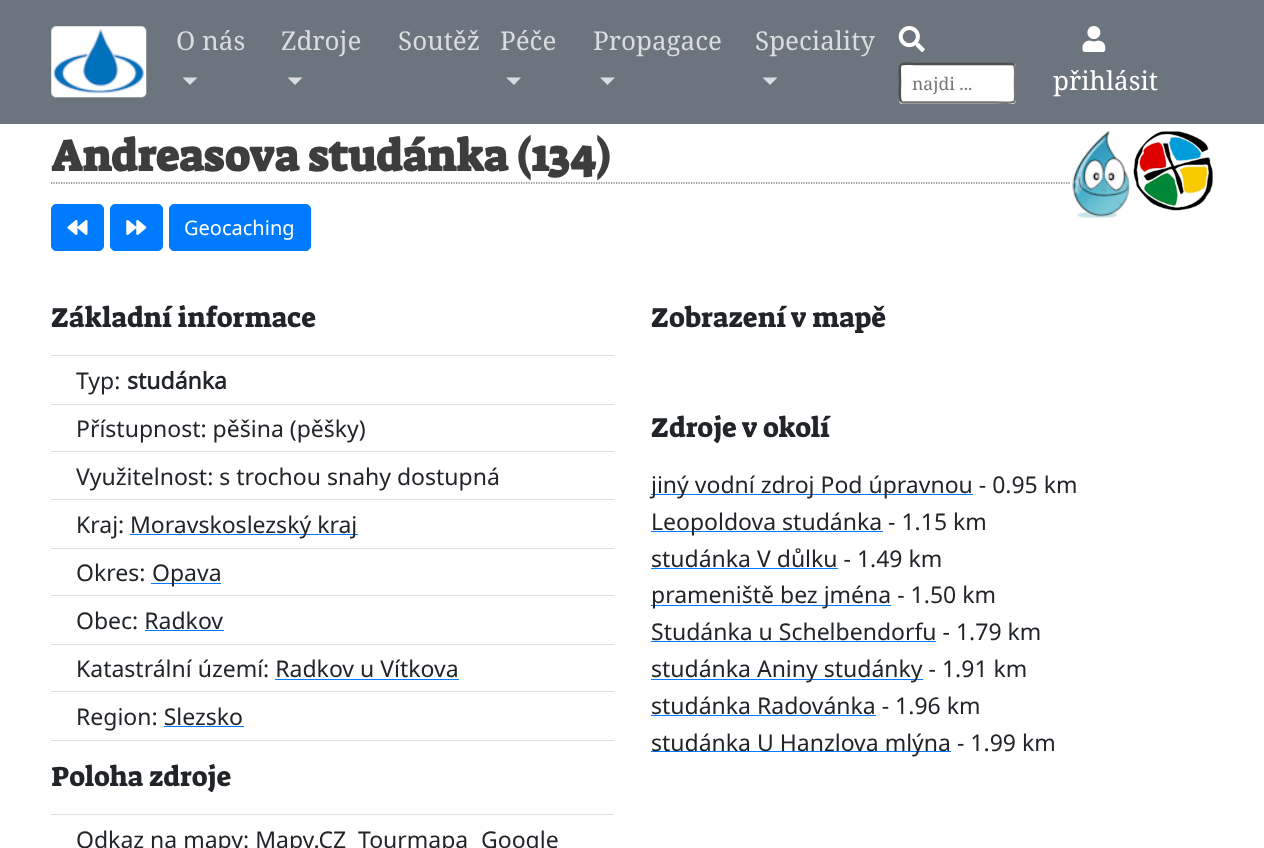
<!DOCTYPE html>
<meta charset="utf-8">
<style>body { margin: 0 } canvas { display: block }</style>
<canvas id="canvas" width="1264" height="848"></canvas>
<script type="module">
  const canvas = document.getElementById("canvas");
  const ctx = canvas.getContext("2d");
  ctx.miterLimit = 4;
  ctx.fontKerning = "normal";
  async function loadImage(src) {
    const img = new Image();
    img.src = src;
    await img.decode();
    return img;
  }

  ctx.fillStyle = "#ffffff";
  ctx.fillRect(0, 0, 1264, 848);
  ctx.fillStyle = "#6c757d";
  ctx.fillRect(0, 0, 1264, 124);
  ctx.drawImage(await loadImage("img1.png"), 51, 26, 96, 72);
  ctx.font = "26px Noto Serif";
  ctx.fillStyle = "#dadddf";
  ctx.fillText("O nás", 176, 50);
  ctx.beginPath();
  ctx.moveTo(182.5, 77.5);
  ctx.lineTo(197.5, 77.5);
  ctx.lineTo(190, 85);
  ctx.closePath();
  ctx.fill();
  ctx.fillText("Zdroje", 281, 50);
  ctx.beginPath();
  ctx.moveTo(287.5, 77.5);
  ctx.lineTo(302.5, 77.5);
  ctx.lineTo(295, 85);
  ctx.closePath();
  ctx.fill();
  ctx.fillText("Soutěž", 398, 50);
  ctx.fillText("Péče", 500, 50);
  ctx.beginPath();
  ctx.moveTo(506, 77.5);
  ctx.lineTo(521, 77.5);
  ctx.lineTo(514, 85);
  ctx.closePath();
  ctx.fill();
  ctx.fillText("Propagace", 593, 50);
  ctx.beginPath();
  ctx.moveTo(600, 77.5);
  ctx.lineTo(615, 77.5);
  ctx.lineTo(607.5, 85);
  ctx.closePath();
  ctx.fill();
  ctx.fillText("Speciality", 755, 50);
  ctx.beginPath();
  ctx.moveTo(762.5, 77.5);
  ctx.lineTo(777.5, 77.5);
  ctx.lineTo(770, 85);
  ctx.closePath();
  ctx.fill();
  ctx.drawImage(await loadImage("img2.png"), 898, 26, 27, 26);
  ctx.fillStyle = "#ffffff";
  ctx.beginPath();
  ctx.roundRect(899, 63, 117, 41, 4);
  ctx.fill();
  ctx.beginPath();
  ctx.moveTo(1014, 64.5);
  ctx.bezierCurveTo(1016, 66.5, 1015, 80, 1015, 83);
  ctx.bezierCurveTo(1015, 107, 1019.5, 102.5, 994, 102.5);
  ctx.lineTo(903, 102.5);
  ctx.lineTo(901, 101.5);
  ctx.strokeStyle = "#767676";
  ctx.lineWidth = 2.5;
  ctx.stroke();
  ctx.beginPath();
  ctx.moveTo(901, 101.5);
  ctx.bezierCurveTo(899, 99.5, 900, 86, 900, 83);
  ctx.bezierCurveTo(900, 59, 895.5, 64, 921, 64);
  ctx.lineTo(1012, 64);
  ctx.lineTo(1014, 64.5);
  ctx.strokeStyle = "#4f4f4f";
  ctx.stroke();
  ctx.font = "17.5px Noto Serif";
  ctx.fillStyle = "#757575";
  ctx.fillText("najdi ...", 912, 90);
  ctx.drawImage(await loadImage("img3.png"), 1082, 26, 24, 26);
  ctx.font = "26px Noto Serif";
  ctx.fillStyle = "#ffffff";
  ctx.fillText("přihlásit", 1053, 90);
  ctx.beginPath();
  ctx.moveTo(51, 183);
  ctx.lineTo(1214, 183);
  ctx.strokeStyle = "#3d3d3d";
  ctx.lineWidth = 1.2;
  ctx.setLineDash([1.25, 1.25]);
  ctx.stroke();
  ctx.font = "bold 44px Suez One";
  ctx.fillStyle = "#3d3d3d";
  ctx.fillText("Andreasova studánka (134)", 51, 171);
  ctx.drawImage(await loadImage("img5.png"), 1132, 131, 82, 80);
  ctx.drawImage(await loadImage("img4.png"), 1071, 131, 62, 87);
  ctx.fillStyle = "#007bff";
  ctx.beginPath();
  ctx.roundRect(51.5, 204.5, 52, 46, 4.5);
  ctx.fill();
  ctx.strokeStyle = "#007bff";
  ctx.lineWidth = 1;
  ctx.setLineDash([]);
  ctx.stroke();
  ctx.drawImage(await loadImage("img6.png"), 67, 220, 21, 15);
  ctx.beginPath();
  ctx.roundRect(110.5, 204.5, 52, 46, 4.5);
  ctx.fill();
  ctx.stroke();
  ctx.drawImage(await loadImage("img7.png"), 126, 220, 21, 15);
  ctx.beginPath();
  ctx.roundRect(169.5, 204.5, 141, 46, 4.5);
  ctx.fill();
  ctx.stroke();
  ctx.font = "20px Noto Sans";
  ctx.fillStyle = "#ffffff";
  ctx.fillText("Geocaching", 184, 235);
  ctx.font = "28px Suez One";
  ctx.fillStyle = "#212529";
  ctx.fillText("Základní informace", 51, 327);
  ctx.fillStyle = "#dfdfdf";
  ctx.fillRect(51, 355, 563, 1);
  ctx.font = "23px Noto Sans";
  ctx.fillStyle = "#212529";
  ctx.fillText("Typ:", 76, 389);
  ctx.font = "bold 23px Noto Sans";
  ctx.fillText("studánka", 127, 389);
  ctx.fillStyle = "#dfdfdf";
  ctx.fillRect(51, 404, 563, 1);
  ctx.font = "23px Noto Sans";
  ctx.fillStyle = "#212529";
  ctx.fillText("Přístupnost: pěšina (pěšky)", 76, 437);
  ctx.fillStyle = "#dfdfdf";
  ctx.fillRect(51, 451, 563, 1);
  ctx.fillStyle = "#212529";
  ctx.fillText("Využitelnost: s trochou snahy dostupná", 76, 485);
  ctx.fillStyle = "#dfdfdf";
  ctx.fillRect(51, 499, 563, 1);
  ctx.fillStyle = "#212529";
  ctx.fillText("Kraj:", 76, 533);
  ctx.fillStyle = "#007bff";
  ctx.fillRect(130, 534, 228, 1);
  ctx.fillStyle = "#212529";
  ctx.fillText("Moravskoslezský kraj", 130, 533);
  ctx.fillStyle = "#dfdfdf";
  ctx.fillRect(51, 548, 563, 1);
  ctx.fillStyle = "#212529";
  ctx.fillText("Okres:", 76, 581);
  ctx.fillStyle = "#007bff";
  ctx.fillRect(151, 583, 70, 1);
  ctx.fillStyle = "#212529";
  ctx.fillText("Opava", 152, 581);
  ctx.fillStyle = "#dfdfdf";
  ctx.fillRect(51, 595, 563, 1);
  ctx.fillStyle = "#212529";
  ctx.fillText("Obec: Radkov", 76, 629);
  ctx.fillStyle = "#007bff";
  ctx.fillRect(145, 630, 79, 1);
  ctx.fillStyle = "#dfdfdf";
  ctx.fillRect(51, 644, 563, 1);
  ctx.fillStyle = "#212529";
  ctx.fillText("Katastrální území: Radkov u Vítkova", 76, 677);
  ctx.fillStyle = "#007bff";
  ctx.fillRect(275, 679, 184, 1);
  ctx.fillStyle = "#dfdfdf";
  ctx.fillRect(51, 691, 563, 1);
  ctx.fillRect(51, 740, 563, 1);
  ctx.fillStyle = "#212529";
  ctx.fillText("Region: Slezsko", 76, 725);
  ctx.fillStyle = "#007bff";
  ctx.fillRect(164, 726, 80, 1);
  ctx.font = "28px Suez One";
  ctx.fillStyle = "#212529";
  ctx.fillText("Poloha zdroje", 51, 786);
  ctx.fillStyle = "#dfdfdf";
  ctx.fillRect(51, 814, 563, 1);
  ctx.font = "23px Noto Sans";
  ctx.fillStyle = "#212529";
  ctx.fillText("Odkaz na mapy: Mapy.CZ", 76, 848);
  ctx.fillText("Tourmapa", 358, 848);
  ctx.fillText("Google", 481, 848);
  ctx.font = "28px Suez One";
  ctx.fillText("Zobrazení v mapě", 651, 327);
  ctx.fillText("Zdroje v okolí", 651, 437);
  ctx.fillStyle = "#007bff";
  ctx.fillRect(651, 494, 322, 1);
  ctx.font = "23px Noto Sans";
  ctx.fillStyle = "#212529";
  ctx.fillText("jiný vodní zdroj Pod úpravnou - 0.95 km", 651, 493);
  ctx.fillStyle = "#007bff";
  ctx.fillRect(651, 531, 232, 1);
  ctx.fillStyle = "#212529";
  ctx.fillText("Leopoldova studánka - 1.15 km", 651, 530);
  ctx.fillText("studánka V důlku - 1.49 km", 651, 567);
  ctx.fillStyle = "#007bff";
  ctx.fillRect(651, 568, 187, 1);
  ctx.fillRect(651, 605, 240, 1);
  ctx.fillStyle = "#212529";
  ctx.fillText("prameniště bez jména - 1.50 km", 651, 603);
  ctx.fillText("Studánka u Schelbendorfu - 1.79 km", 651, 640);
  ctx.fillStyle = "#007bff";
  ctx.fillRect(651, 641, 285, 1);
  ctx.fillRect(651, 679, 272, 1);
  ctx.fillStyle = "#212529";
  ctx.fillText("studánka Aniny studánky - 1.91 km", 651, 677);
  ctx.fillText("studánka Radovánka - 1.96 km", 651, 714);
  ctx.fillStyle = "#007bff";
  ctx.fillRect(651, 715, 225, 1);
  ctx.fillRect(651, 751, 300, 1);
  ctx.fillStyle = "#212529";
  ctx.fillText("studánka U Hanzlova mlýna - 1.99 km", 651, 751);
</script>
